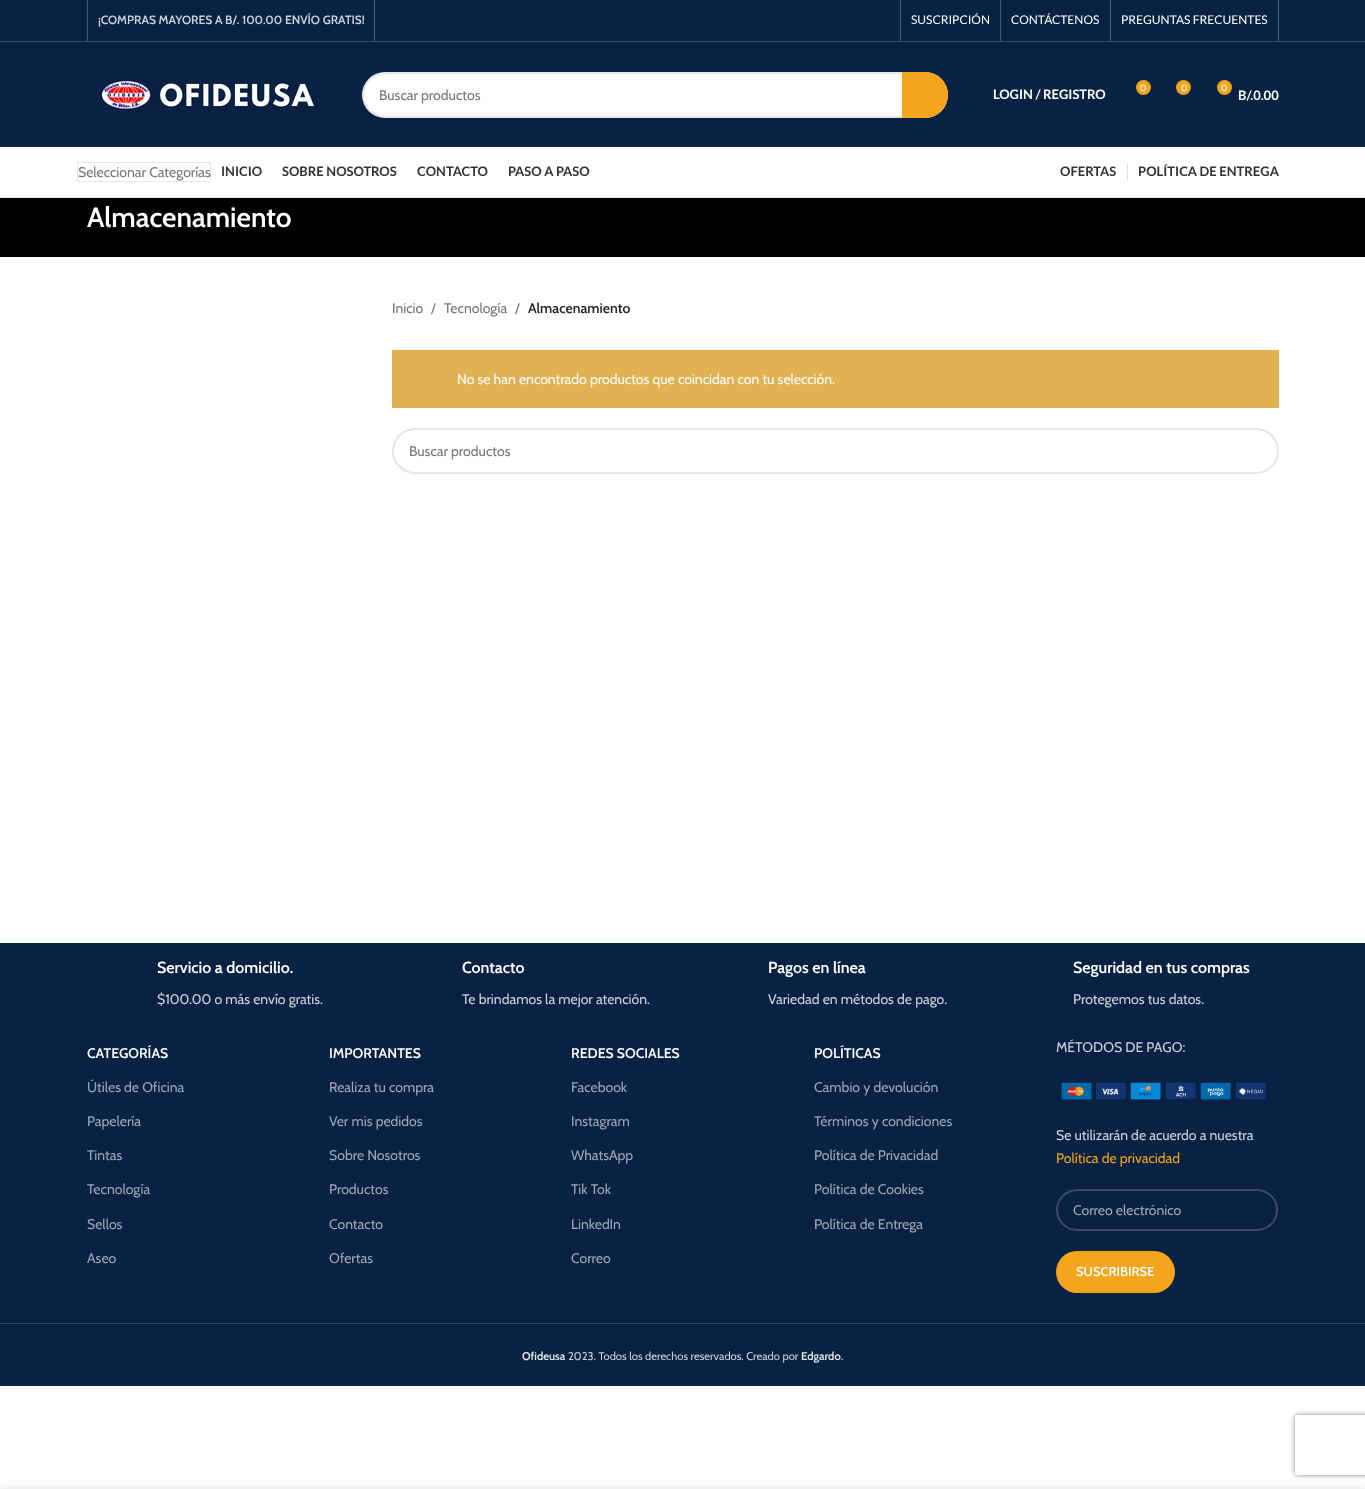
<!DOCTYPE html>
<meta charset="utf-8">
<style>body { margin: 0 } canvas { display: block }</style>
<canvas id="canvas" width="1365" height="1489"></canvas>
<script type="module">
  const canvas = document.getElementById("canvas");
  const ctx = canvas.getContext("2d");
  ctx.miterLimit = 4;
  ctx.fontKerning = "normal";
  async function loadImage(src) {
    const img = new Image();
    img.src = src;
    await img.decode();
    return img;
  }

  ctx.fillStyle = "#ffffff";
  ctx.fillRect(0, 0, 1365, 1489);
  ctx.fillStyle = "#092143";
  ctx.fillRect(0, 0, 1365, 41);
  ctx.fillStyle = "#3a4d69";
  ctx.fillRect(0, 41, 1365, 1);
  ctx.fillStyle = "#475972";
  ctx.fillRect(87, 0, 1, 41);
  ctx.font = "600 12px Cabin";
  ctx.fillStyle = "#ced3d9";
  ctx.fillText("¡COMPRAS MAYORES A B/. 100.00 ENVÍO GRATIS!", 98, 24);
  ctx.fillStyle = "#475972";
  ctx.fillRect(374, 0, 1, 41);
  ctx.fillRect(900, 0, 1, 41);
  ctx.font = "12px Lato";
  ctx.fillStyle = "#ffffff";
  ctx.fillText("SUSCRIPCIÓN", 911, 24);
  ctx.fillStyle = "#475972";
  ctx.fillRect(1000, 0, 1, 41);
  ctx.fillStyle = "#ffffff";
  ctx.fillText("CONTÁCTENOS", 1011, 24);
  ctx.fillStyle = "#475972";
  ctx.fillRect(1110, 0, 1, 41);
  ctx.fillStyle = "#ffffff";
  ctx.fillText("PREGUNTAS FRECUENTES", 1121, 24);
  ctx.fillStyle = "#475972";
  ctx.fillRect(1278, 0, 1, 41);
  ctx.fillStyle = "#092143";
  ctx.fillRect(0, 42, 1365, 105);
  ctx.drawImage(await loadImage("img1.png"), 100, 79, 215, 31);
  ctx.fillStyle = "#ffffff";
  ctx.beginPath();
  ctx.roundRect(362, 72, 586, 46, 23);
  ctx.fill();
  ctx.beginPath();
  ctx.roundRect(363, 73, 584, 44, 22);
  ctx.strokeStyle = "rgba(0, 0, 0, 0.1)";
  ctx.lineWidth = 2;
  ctx.stroke();
  ctx.font = "14px Cabin";
  ctx.fillStyle = "#767676";
  ctx.fillText("Buscar productos", 379, 100);
  ctx.fillStyle = "#f4a51c";
  ctx.beginPath();
  ctx.roundRect(902, 72, 46, 46, [0, 23, 23, 0]);
  ctx.fill();
  ctx.font = "bold 13px Lato";
  ctx.fillStyle = "#ffffff";
  ctx.fillText("LOGIN / REGISTRO", 993, 99);
  ctx.fillStyle = "#f4a51c";
  ctx.beginPath();
  ctx.arc(1143.5, 87.5, 7.5, 0, Math.PI * 2);
  ctx.fill();
  ctx.font = "9px Cabin";
  ctx.fillStyle = "#ffffff";
  ctx.fillText("0", 1140, 91);
  ctx.fillStyle = "#f4a51c";
  ctx.beginPath();
  ctx.arc(1183.5, 87.5, 7.5, 0, Math.PI * 2);
  ctx.fill();
  ctx.fillStyle = "#ffffff";
  ctx.fillText("0", 1181, 91);
  ctx.fillStyle = "#f4a51c";
  ctx.beginPath();
  ctx.arc(1224.5, 87.5, 7.5, 0, Math.PI * 2);
  ctx.fill();
  ctx.fillStyle = "#ffffff";
  ctx.fillText("0", 1221, 91);
  ctx.font = "bold 13px Lato";
  ctx.fillText("B/.0.00", 1238, 100);
  ctx.fillStyle = "#e6e6e6";
  ctx.fillRect(0, 197, 1365, 1);
  ctx.font = "14px Cabin";
  ctx.fillStyle = "#767676";
  ctx.fillText("Seleccionar Categorías", 78, 177);
  ctx.fillStyle = "#e6e6e6";
  ctx.beginPath();
  ctx.moveTo(77, 162);
  ctx.lineTo(78, 162);
  ctx.lineTo(78, 163);
  ctx.closePath();
  ctx.moveTo(78, 182);
  ctx.lineTo(77, 182);
  ctx.lineTo(78, 181);
  ctx.closePath();
  ctx.fill();
  ctx.fillStyle = "rgba(129, 129, 129, 0.2)";
  ctx.beginPath();
  ctx.moveTo(77, 182);
  ctx.lineTo(77, 162);
  ctx.lineTo(78, 163);
  ctx.lineTo(78, 181);
  ctx.closePath();
  ctx.fill();
  ctx.fillStyle = "#e6e6e6";
  ctx.beginPath();
  ctx.moveTo(78, 162);
  ctx.lineTo(211, 162);
  ctx.lineTo(210, 163);
  ctx.lineTo(78, 163);
  ctx.closePath();
  ctx.fill();
  ctx.fillStyle = "rgba(129, 129, 129, 0.2)";
  ctx.beginPath();
  ctx.moveTo(211, 162);
  ctx.lineTo(211, 182);
  ctx.lineTo(210, 181);
  ctx.lineTo(210, 163);
  ctx.closePath();
  ctx.fill();
  ctx.beginPath();
  ctx.moveTo(211, 182);
  ctx.lineTo(78, 182);
  ctx.lineTo(78, 181);
  ctx.lineTo(210, 181);
  ctx.closePath();
  ctx.fill();
  ctx.font = "bold 13px Lato";
  ctx.fillStyle = "#333333";
  ctx.fillText("INICIO", 221, 176);
  ctx.fillText("SOBRE NOSOTROS", 282, 176);
  ctx.fillText("CONTACTO", 417, 176);
  ctx.fillText("PASO A PASO", 508, 176);
  ctx.fillText("OFERTAS", 1060, 176);
  ctx.fillStyle = "#e4e4e4";
  ctx.fillRect(1127, 163, 1, 18);
  ctx.fillStyle = "#333333";
  ctx.fillText("POLÍTICA DE ENTREGA", 1138, 176);
  ctx.fillStyle = "#000000";
  ctx.fillRect(0, 198, 1365, 59);
  ctx.font = "600 28px Cabin";
  ctx.fillStyle = "#ffffff";
  ctx.fillText("Almacenamiento", 87, 227);
  ctx.font = "14px Cabin";
  ctx.fillStyle = "#767676";
  ctx.fillText("Inicio", 392, 313);
  ctx.fillText("/", 431, 313);
  ctx.fillText("Tecnología", 444, 313);
  ctx.fillText("/", 515, 313);
  ctx.font = "600 14px Cabin";
  ctx.fillStyle = "#242424";
  ctx.fillText("Almacenamiento", 528, 313);
  ctx.fillStyle = "#e0b252";
  ctx.fillRect(392, 350, 887, 58);
  ctx.font = "14px Cabin";
  ctx.fillStyle = "#ffffff";
  ctx.fillText("No se han encontrado productos que coincidan con tu selección.", 457, 384);
  ctx.beginPath();
  ctx.roundRect(393, 429, 885, 44, 22);
  ctx.strokeStyle = "#e6e6e6";
  ctx.stroke();
  ctx.fillStyle = "#767676";
  ctx.fillText("Buscar productos", 409, 456);
  ctx.fillStyle = "#092143";
  ctx.fillRect(0, 943, 1365, 443);
  ctx.font = "600 16px Cabin";
  ctx.fillStyle = "#ffffff";
  ctx.fillText("Servicio a domicilio.", 157, 973);
  ctx.font = "14px Cabin";
  ctx.fillStyle = "#ced3d9";
  ctx.fillText("$100.00 o más envío gratis.", 157, 1004);
  ctx.font = "600 16px Cabin";
  ctx.fillStyle = "#ffffff";
  ctx.fillText("Contacto", 462, 973);
  ctx.font = "14px Cabin";
  ctx.fillStyle = "#ced3d9";
  ctx.fillText("Te brindamos la mejor atención.", 462, 1004);
  ctx.font = "600 16px Cabin";
  ctx.fillStyle = "#ffffff";
  ctx.fillText("Pagos en línea", 768, 973);
  ctx.font = "14px Cabin";
  ctx.fillStyle = "#ced3d9";
  ctx.fillText("Variedad en métodos de pago.", 768, 1004);
  ctx.font = "600 16px Cabin";
  ctx.fillStyle = "#ffffff";
  ctx.fillText("Seguridad en tus compras", 1073, 973);
  ctx.font = "14px Cabin";
  ctx.fillStyle = "#ced3d9";
  ctx.fillText("Protegemos tus datos.", 1073, 1004);
  ctx.font = "600 14px Cabin";
  ctx.fillStyle = "#ffffff";
  ctx.fillText("CATEGORÍAS", 87, 1058);
  ctx.font = "14px Cabin";
  ctx.fillStyle = "#9da6b4";
  ctx.fillText("Útiles de Oficina", 87, 1092);
  ctx.fillText("Papelería", 87, 1126);
  ctx.fillText("Tintas", 87, 1160);
  ctx.fillText("Tecnología", 87, 1194);
  ctx.fillText("Sellos", 87, 1229);
  ctx.fillText("Aseo", 87, 1263);
  ctx.font = "600 14px Cabin";
  ctx.fillStyle = "#ffffff";
  ctx.fillText("IMPORTANTES", 329, 1058);
  ctx.font = "14px Cabin";
  ctx.fillStyle = "#9da6b4";
  ctx.fillText("Realiza tu compra", 329, 1092);
  ctx.fillText("Ver mis pedidos", 329, 1126);
  ctx.fillText("Sobre Nosotros", 329, 1160);
  ctx.fillText("Productos", 329, 1194);
  ctx.fillText("Contacto", 329, 1229);
  ctx.fillText("Ofertas", 329, 1263);
  ctx.font = "600 14px Cabin";
  ctx.fillStyle = "#ffffff";
  ctx.fillText("REDES SOCIALES", 571, 1058);
  ctx.font = "14px Cabin";
  ctx.fillStyle = "#9da6b4";
  ctx.fillText("Facebook", 571, 1092);
  ctx.fillText("Instagram", 571, 1126);
  ctx.fillText("WhatsApp", 571, 1160);
  ctx.fillText("Tik Tok", 571, 1194);
  ctx.fillText("LinkedIn", 571, 1229);
  ctx.fillText("Correo", 571, 1263);
  ctx.font = "600 14px Cabin";
  ctx.fillStyle = "#ffffff";
  ctx.fillText("POLÍTICAS", 814, 1058);
  ctx.font = "14px Cabin";
  ctx.fillStyle = "#9da6b4";
  ctx.fillText("Cambio y devolución", 814, 1092);
  ctx.fillText("Términos y condiciones", 814, 1126);
  ctx.fillText("Política de Privacidad", 814, 1160);
  ctx.fillText("Política de Cookies", 814, 1194);
  ctx.fillText("Política de Entrega", 814, 1229);
  ctx.fillStyle = "#ced3d9";
  ctx.fillText("MÉTODOS DE PAGO:", 1056, 1052);
  ctx.drawImage(await loadImage("img2.png"), 1061, 1082, 205, 18);
  ctx.fillText("Se utilizarán de acuerdo a nuestra", 1056, 1140);
  ctx.fillStyle = "#f4a51c";
  ctx.fillText("Política de privacidad", 1056, 1163);
  ctx.beginPath();
  ctx.roundRect(1057, 1190, 220, 40, 20);
  ctx.strokeStyle = "#3a4d69";
  ctx.stroke();
  ctx.fillStyle = "#9da6b4";
  ctx.fillText("Correo electrónico", 1073, 1215);
  ctx.fillStyle = "#f4a51c";
  ctx.beginPath();
  ctx.roundRect(1056, 1251, 119, 42, 21);
  ctx.fill();
  ctx.font = "600 13px Cabin";
  ctx.fillStyle = "#ffffff";
  ctx.fillText("SUSCRIBIRSE", 1076, 1276);
  ctx.fillStyle = "#2e425f";
  ctx.fillRect(0, 1323, 1365, 1);
  ctx.font = "600 11.2px Cabin";
  ctx.fillStyle = "#e6e9ec";
  ctx.fillText("Ofideusa", 522, 1360);
  ctx.font = "11.2px Cabin";
  ctx.fillStyle = "#ced3d9";
  ctx.fillText("2023. Todos los derechos reservados. Creado por", 568, 1360);
  ctx.font = "600 11.2px Cabin";
  ctx.fillStyle = "#e6e9ec";
  ctx.fillText("Edgardo", 801, 1360);
  ctx.font = "11.2px Cabin";
  ctx.fillStyle = "#ced3d9";
  ctx.fillText(".", 841, 1360);
  ctx.save();
  ctx.beginPath();
  ctx.moveTo(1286, 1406);
  ctx.lineTo(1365, 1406);
  ctx.lineTo(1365, 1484);
  ctx.lineTo(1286, 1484);
  ctx.closePath();
  ctx.moveTo(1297, 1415);
  ctx.lineTo(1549, 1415);
  ctx.bezierCurveTo(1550, 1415, 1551, 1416, 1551, 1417);
  ctx.lineTo(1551, 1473);
  ctx.bezierCurveTo(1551, 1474, 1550, 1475, 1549, 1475);
  ctx.lineTo(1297, 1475);
  ctx.bezierCurveTo(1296, 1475, 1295, 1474, 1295, 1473);
  ctx.lineTo(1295, 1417);
  ctx.bezierCurveTo(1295, 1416, 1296, 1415, 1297, 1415);
  ctx.closePath();
  ctx.clip("evenodd");
  ctx.fillStyle = "#808080";
  ctx.filter = "blur(2.5px)";
  ctx.beginPath();
  ctx.roundRect(1295, 1415, 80, 60, 2);
  ctx.fill();
  ctx.filter = "none";
  ctx.restore();
  ctx.fillStyle = "rgba(0, 0, 0, 0.14)";
  ctx.filter = "blur(4.5px)";
  ctx.beginPath();
  ctx.rect(0, 1489, 1365, 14);
  ctx.fill();
  ctx.filter = "none";
</script>
